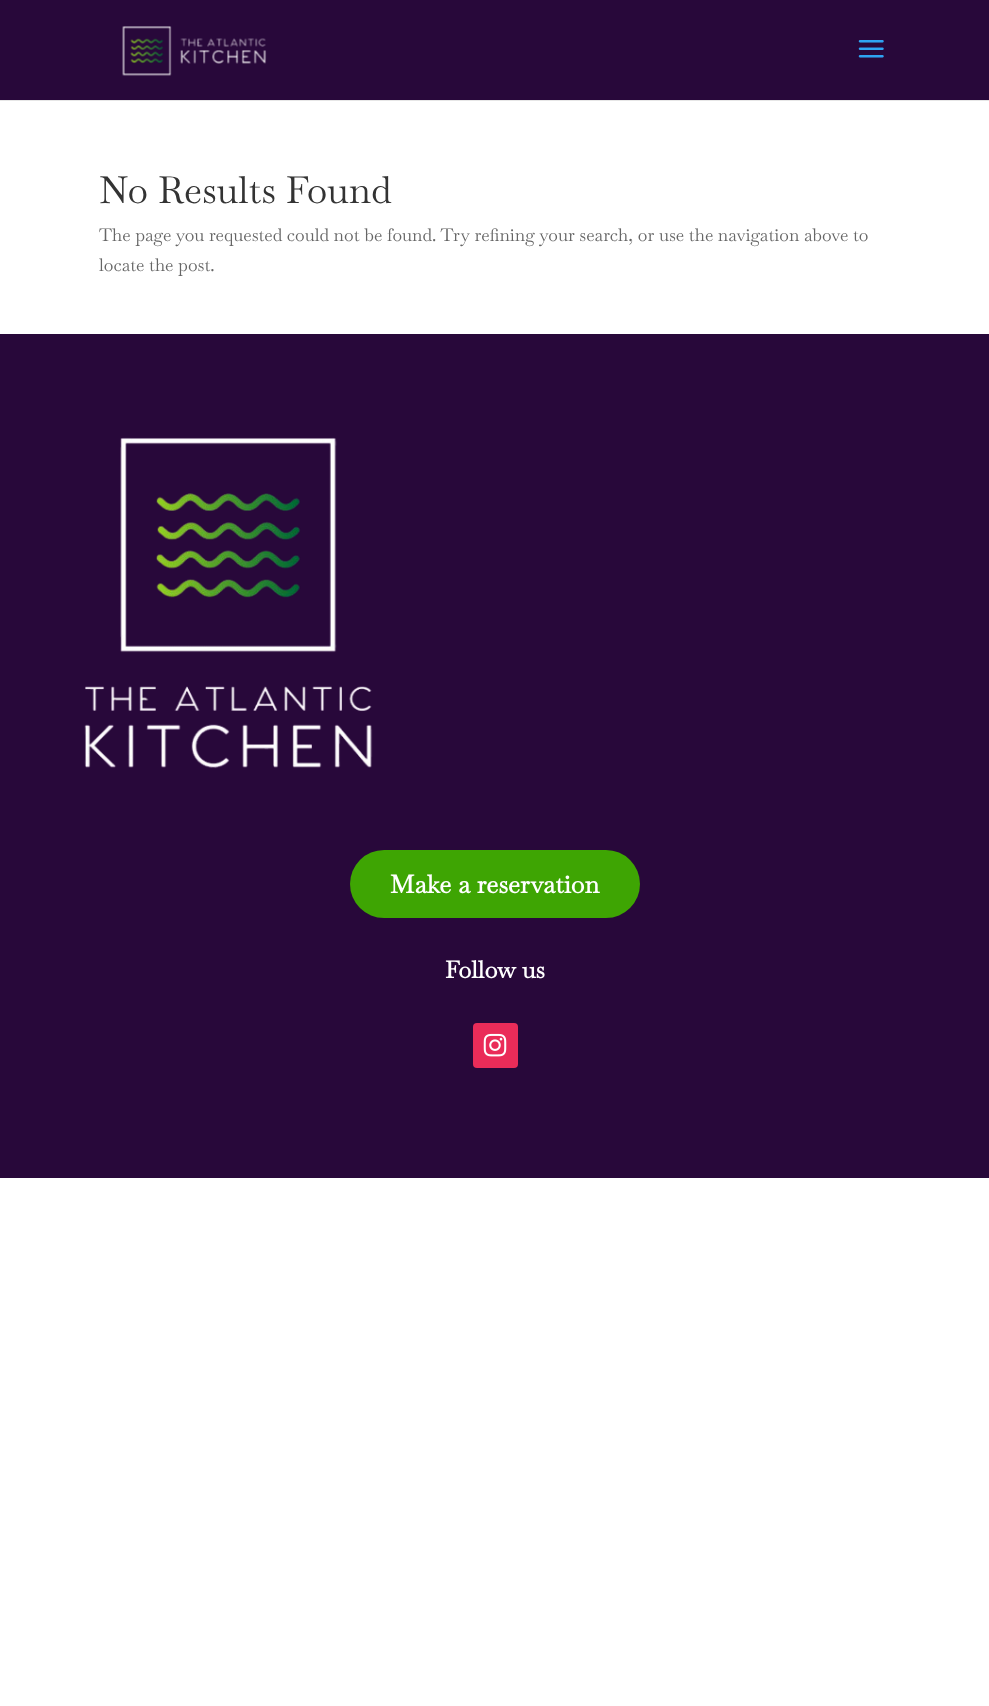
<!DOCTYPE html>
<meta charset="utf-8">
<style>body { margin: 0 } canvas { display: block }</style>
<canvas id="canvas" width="989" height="1706"></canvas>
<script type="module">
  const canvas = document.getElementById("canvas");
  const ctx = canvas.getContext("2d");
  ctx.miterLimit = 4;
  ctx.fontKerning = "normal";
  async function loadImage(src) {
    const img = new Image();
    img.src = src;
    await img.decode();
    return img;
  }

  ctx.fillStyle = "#ffffff";
  ctx.fillRect(0, 0, 989, 1706);
  ctx.fillStyle = "#e6e6e6";
  ctx.fillRect(0, 100, 989, 1);
  ctx.fillStyle = "#28083a";
  ctx.fillRect(0, 0, 989, 100);
  ctx.drawImage(await loadImage("img1.png"), 122, 26, 145, 50);
  ctx.drawImage(await loadImage("img2.png"), 858, 40, 26, 18);
  ctx.font = "37.5px Baskervville";
  ctx.fillStyle = "#333333";
  ctx.fillText("No Results Found", 99, 203);
  ctx.font = "17.5px Baskervville";
  ctx.fillStyle = "#666666";
  ctx.fillText("The page you requested could not be found. Try refining your search, or use the navigation above to", 99, 241);
  ctx.fillText("locate the post.", 99, 271);
  ctx.fillStyle = "#28083a";
  ctx.fillRect(0, 334, 989, 844);
  ctx.drawImage(await loadImage("img3.png"), 84, 437, 289, 332);
  ctx.fillStyle = "#3ea503";
  ctx.beginPath();
  ctx.roundRect(350, 850, 290, 68, 34);
  ctx.fill();
  ctx.font = "bold 25px Baskervville";
  ctx.fillStyle = "#ffffff";
  ctx.fillText("Make a reservation", 390, 893);
  ctx.font = "bold 23.75px Baskervville";
  ctx.fillText("Follow us", 445, 978);
  ctx.fillStyle = "#ea2c59";
  ctx.beginPath();
  ctx.roundRect(473, 1023, 45, 45, 4);
  ctx.fill();
  ctx.drawImage(await loadImage("img4.png"), 483, 1033, 24, 24);
</script>
